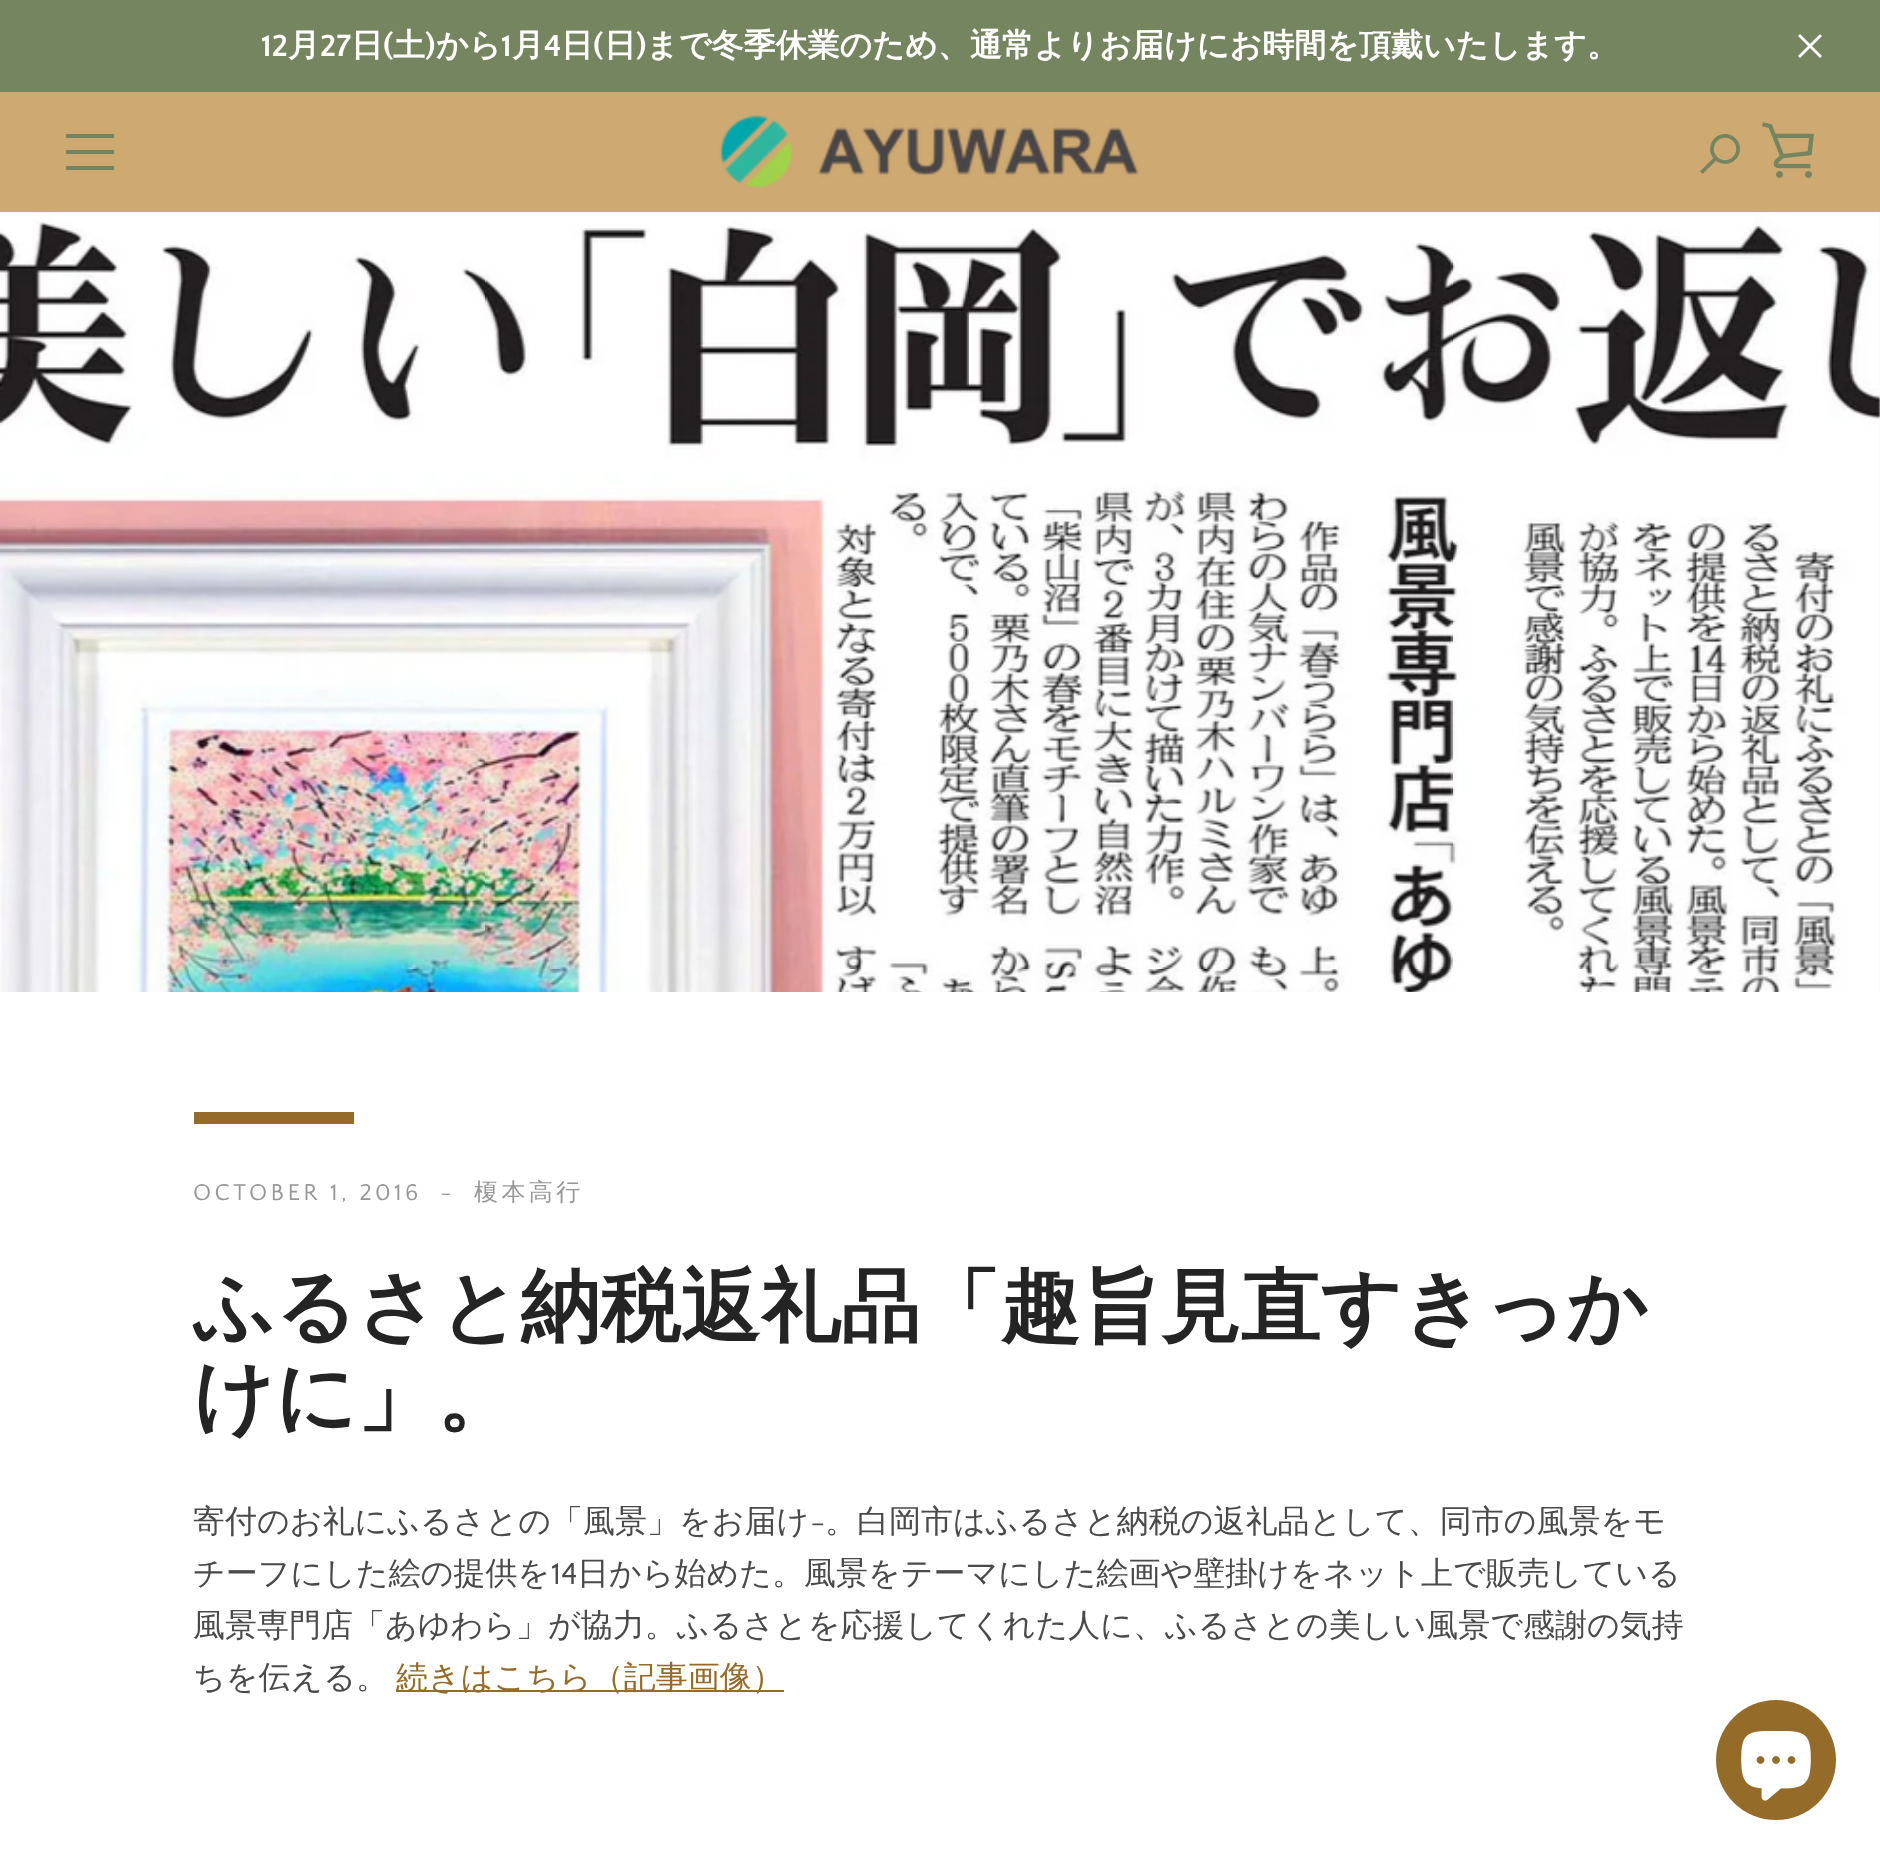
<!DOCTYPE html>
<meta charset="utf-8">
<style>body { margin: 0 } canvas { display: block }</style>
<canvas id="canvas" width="1880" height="1861"></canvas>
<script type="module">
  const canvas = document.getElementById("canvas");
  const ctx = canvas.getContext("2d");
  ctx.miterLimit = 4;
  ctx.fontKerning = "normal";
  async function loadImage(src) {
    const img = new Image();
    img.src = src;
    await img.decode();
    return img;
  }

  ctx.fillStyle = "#ffffff";
  ctx.fillRect(0, 0, 1880, 1861);
  ctx.fillStyle = "#cfa972";
  ctx.fillRect(0, 92, 1880, 120);
  ctx.fillStyle = "#758560";
  ctx.fillRect(0, 0, 1880, 92);
  ctx.font = "bold 32px Quattrocento Sans";
  ctx.fillStyle = "#ffffff";
  ctx.fillText("12", 261, 56);
  ctx.font = "bold 32px WenQuanYi Zen Hei";
  ctx.fillText("月", 288, 56);
  ctx.font = "bold 32px Quattrocento Sans";
  ctx.fillText("27", 320, 56);
  ctx.font = "bold 32px WenQuanYi Zen Hei";
  ctx.fillText("日", 351, 56);
  ctx.font = "bold 32px Quattrocento Sans";
  ctx.fillText("(", 383, 56);
  ctx.font = "bold 32px WenQuanYi Zen Hei";
  ctx.fillText("土", 393, 56);
  ctx.font = "bold 32px Quattrocento Sans";
  ctx.fillText(")", 425, 56);
  ctx.font = "bold 32px WenQuanYi Zen Hei";
  ctx.fillText("から", 436, 56);
  ctx.font = "bold 32px Quattrocento Sans";
  ctx.fillText("1", 501, 56);
  ctx.font = "bold 32px WenQuanYi Zen Hei";
  ctx.fillText("月", 512, 56);
  ctx.font = "bold 32px Quattrocento Sans";
  ctx.fillText("4", 544, 56);
  ctx.font = "bold 32px WenQuanYi Zen Hei";
  ctx.fillText("日", 561, 56);
  ctx.font = "bold 32px Quattrocento Sans";
  ctx.fillText("(", 593, 56);
  ctx.font = "bold 32px WenQuanYi Zen Hei";
  ctx.fillText("日", 604, 56);
  ctx.font = "bold 32px Quattrocento Sans";
  ctx.fillText(")", 636, 56);
  ctx.font = "bold 32px WenQuanYi Zen Hei";
  ctx.fillText("まで冬季休業のため、通常よりお届けにお時間を頂戴いたします。", 646, 56);
  ctx.drawImage(await loadImage("img1.png"), 1798, 34, 24, 24);
  ctx.fillStyle = "#758560";
  ctx.fillRect(66, 134, 48, 4);
  ctx.fillRect(66, 150, 48, 4);
  ctx.fillRect(66, 166, 48, 4);
  ctx.drawImage(await loadImage("img2.png"), 719, 115, 420, 74);
  ctx.drawImage(await loadImage("img3.png"), 1700, 134, 40, 40);
  ctx.drawImage(await loadImage("img4.png"), 1762, 122, 52, 56);
  ctx.fillStyle = "#f3f4f3";
  ctx.fillRect(1878, 212, 2, 780);
  ctx.drawImage(await loadImage("img5.png"), 0, 212, 1880, 780);
  ctx.fillStyle = "#956b2a";
  ctx.fillRect(194, 1112, 160, 12);
  ctx.letterSpacing = "3.4px";
  ctx.font = "24px Quattrocento Sans";
  ctx.fillStyle = "#979797";
  ctx.fillText("OCTOBER 1, 2016", 193, 1200);
  ctx.fillText("-", 440, 1200);
  ctx.font = "500 24px WenQuanYi Zen Hei";
  ctx.fillText("榎本高行", 474, 1200);
  ctx.letterSpacing = "0px";
  ctx.font = "bold 80px WenQuanYi Zen Hei";
  ctx.fillStyle = "#242424";
  ctx.fillText("ふるさと納税返礼品「趣旨見直すきっか", 193, 1334);
  ctx.fillText("けに」。", 193, 1424);
  ctx.font = "500 32px WenQuanYi Zen Hei";
  ctx.fillStyle = "#4a4a4a";
  ctx.fillText("寄付のお礼にふるさとの「風景」をお届け", 193, 1532);
  ctx.font = "32px Quattrocento Sans";
  ctx.fillText("-", 810, 1532);
  ctx.font = "500 32px WenQuanYi Zen Hei";
  ctx.fillText("。白岡市はふるさと納税の返礼品として、同市の風景をモ", 825, 1532);
  ctx.fillText("チーフにした絵の提供を", 193, 1584);
  ctx.font = "32px Quattrocento Sans";
  ctx.fillText("14", 551, 1584);
  ctx.font = "500 32px WenQuanYi Zen Hei";
  ctx.fillText("日から始めた。風景をテーマにした絵画や壁掛けをネット上で販売している", 577, 1584);
  ctx.fillText("風景専門店「あゆわら」が協力。ふるさとを応援してくれた人に、ふるさとの美しい風景で感謝の気持", 193, 1636);
  ctx.fillText("ちを伝える。", 193, 1688);
  ctx.fillStyle = "#956b2a";
  ctx.fillText("続きはこちら（記事画像）", 396, 1688);
  ctx.fillRect(396, 1690, 388, 2);
  ctx.beginPath();
  ctx.arc(1776, 1760, 60, 0, Math.PI * 2);
  ctx.fill();
  ctx.drawImage(await loadImage("img6.png"), 1741, 1731, 70, 70);
</script>
